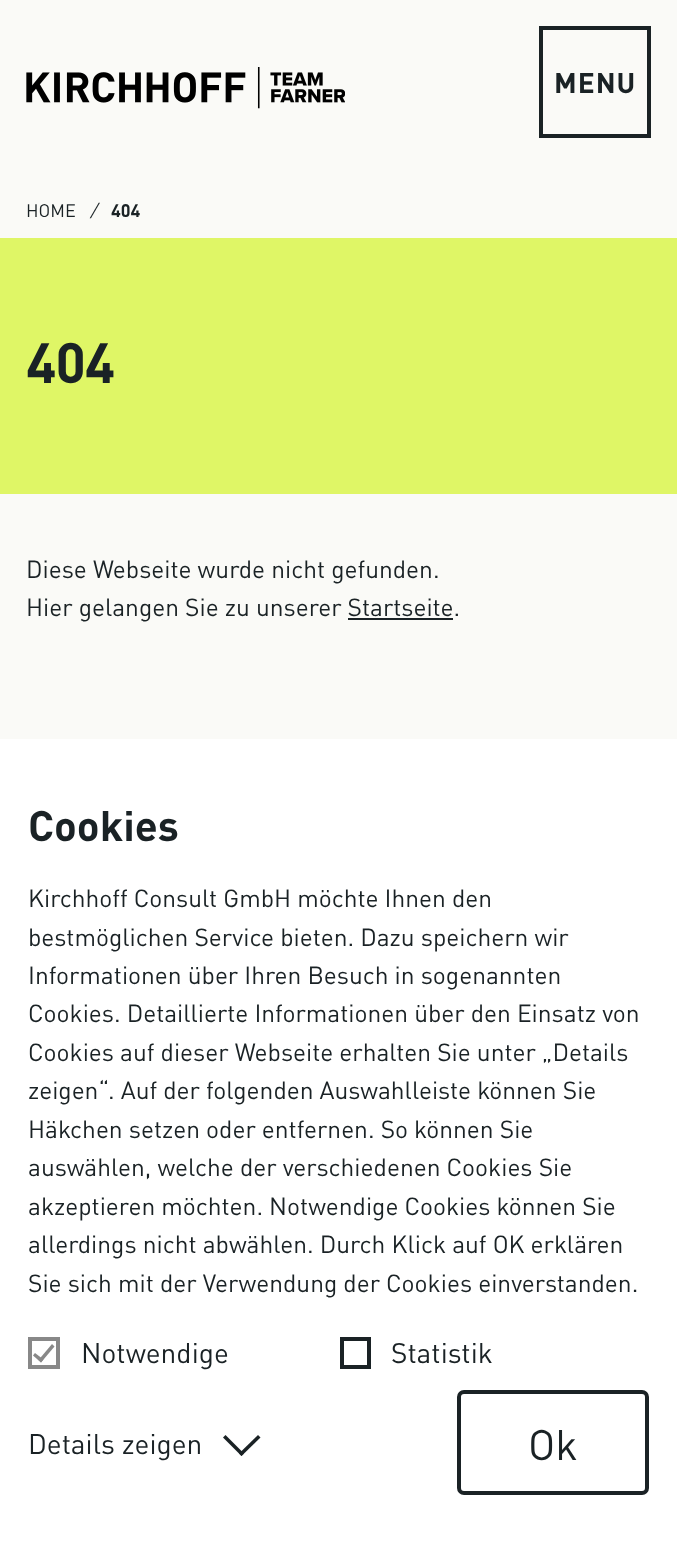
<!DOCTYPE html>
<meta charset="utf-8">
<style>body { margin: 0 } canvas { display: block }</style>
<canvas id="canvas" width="677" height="1550"></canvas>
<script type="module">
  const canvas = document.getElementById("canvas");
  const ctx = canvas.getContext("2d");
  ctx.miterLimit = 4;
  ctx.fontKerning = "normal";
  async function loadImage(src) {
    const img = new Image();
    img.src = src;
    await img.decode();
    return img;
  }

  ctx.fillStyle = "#fafaf7";
  ctx.fillRect(0, 0, 677, 1550);
  ctx.drawImage(await loadImage("img1.png"), 26, 67, 319, 42);
  ctx.strokeStyle = "#1a2225";
  ctx.lineWidth = 4;
  ctx.strokeRect(541, 28, 108, 108);
  ctx.letterSpacing = "1px";
  ctx.font = "bold 28px DIN";
  ctx.fillStyle = "#1a2225";
  ctx.fillText("MENU", 554, 93);
  ctx.letterSpacing = "0px";
  ctx.font = "18px DIN";
  ctx.fillText("HOME", 26, 217);
  ctx.font = "italic 18px DIN";
  ctx.fillText("/", 90, 217);
  ctx.font = "bold 18px DIN";
  ctx.fillText("404", 111, 217);
  ctx.fillStyle = "#dff666";
  ctx.fillRect(0, 238, 677, 256);
  ctx.letterSpacing = "-1px";
  ctx.font = "bold 56px DIN";
  ctx.fillStyle = "#1a2225";
  ctx.fillText("404", 26, 383);
  ctx.letterSpacing = "0px";
  ctx.font = "24.5px DIN";
  ctx.fillText("Diese Webseite wurde nicht gefunden.", 26, 578);
  ctx.fillText("Hier gelangen Sie zu unserer Startseite.", 26, 616);
  ctx.fillRect(348, 618, 105, 2);
  ctx.fillStyle = "#ffffff";
  ctx.fillRect(0, 739, 677, 811);
  ctx.font = "bold 42px DIN";
  ctx.fillStyle = "#1a2225";
  ctx.fillText("Cookies", 28, 841);
  ctx.font = "24.5px DIN";
  ctx.fillText("Kirchhoff Consult GmbH möchte Ihnen den", 28, 907);
  ctx.fillText("bestmöglichen Service bieten. Dazu speichern wir", 28, 946);
  ctx.fillText("Informationen über Ihren Besuch in sogenannten", 28, 984);
  ctx.fillText("Cookies. Detaillierte Informationen über den Einsatz von", 28, 1022);
  ctx.fillText("Cookies auf dieser Webseite erhalten Sie unter „Details", 28, 1061);
  ctx.fillText("zeigen“. Auf der folgenden Auswahlleiste können Sie", 28, 1099);
  ctx.fillText("Häkchen setzen oder entfernen. So können Sie", 28, 1138);
  ctx.fillText("auswählen, welche der verschiedenen Cookies Sie", 28, 1176);
  ctx.fillText("akzeptieren möchten. Notwendige Cookies können Sie", 28, 1215);
  ctx.fillText("allerdings nicht abwählen. Durch Klick auf OK erklären", 28, 1253);
  ctx.fillText("Sie sich mit der Verwendung der Cookies einverstanden.", 28, 1292);
  ctx.strokeStyle = "#888888";
  ctx.strokeRect(30, 1339, 28, 28);
  ctx.fillStyle = "#888888";
  ctx.beginPath();
  ctx.moveTo(38.5, 1360);
  ctx.lineTo(52, 1344);
  ctx.lineTo(54.5, 1346.5);
  ctx.lineTo(41, 1362.5);
  ctx.closePath();
  ctx.fill();
  ctx.beginPath();
  ctx.moveTo(33, 1355.5);
  ctx.lineTo(35, 1353);
  ctx.lineTo(43.5, 1359.5);
  ctx.lineTo(41, 1362.5);
  ctx.closePath();
  ctx.fill();
  ctx.font = "28px DIN";
  ctx.fillStyle = "#1a2225";
  ctx.fillText("Notwendige", 81, 1363);
  ctx.strokeStyle = "#1a2225";
  ctx.strokeRect(342, 1339, 27, 28);
  ctx.fillText("Statistik", 391, 1363);
  ctx.fillText("Details zeigen", 28, 1454);
  ctx.beginPath();
  ctx.moveTo(239, 1453.5);
  ctx.lineTo(258, 1435);
  ctx.lineTo(260.5, 1437.5);
  ctx.lineTo(241.5, 1456);
  ctx.closePath();
  ctx.fill();
  ctx.beginPath();
  ctx.moveTo(223, 1437.5);
  ctx.lineTo(225.5, 1435);
  ctx.lineTo(244, 1453.5);
  ctx.lineTo(241.5, 1456);
  ctx.closePath();
  ctx.fill();
  ctx.beginPath();
  ctx.roundRect(459, 1392, 188, 101, 5);
  ctx.stroke();
  ctx.font = "42px DIN";
  ctx.fillText("Ok", 528, 1460);
</script>
